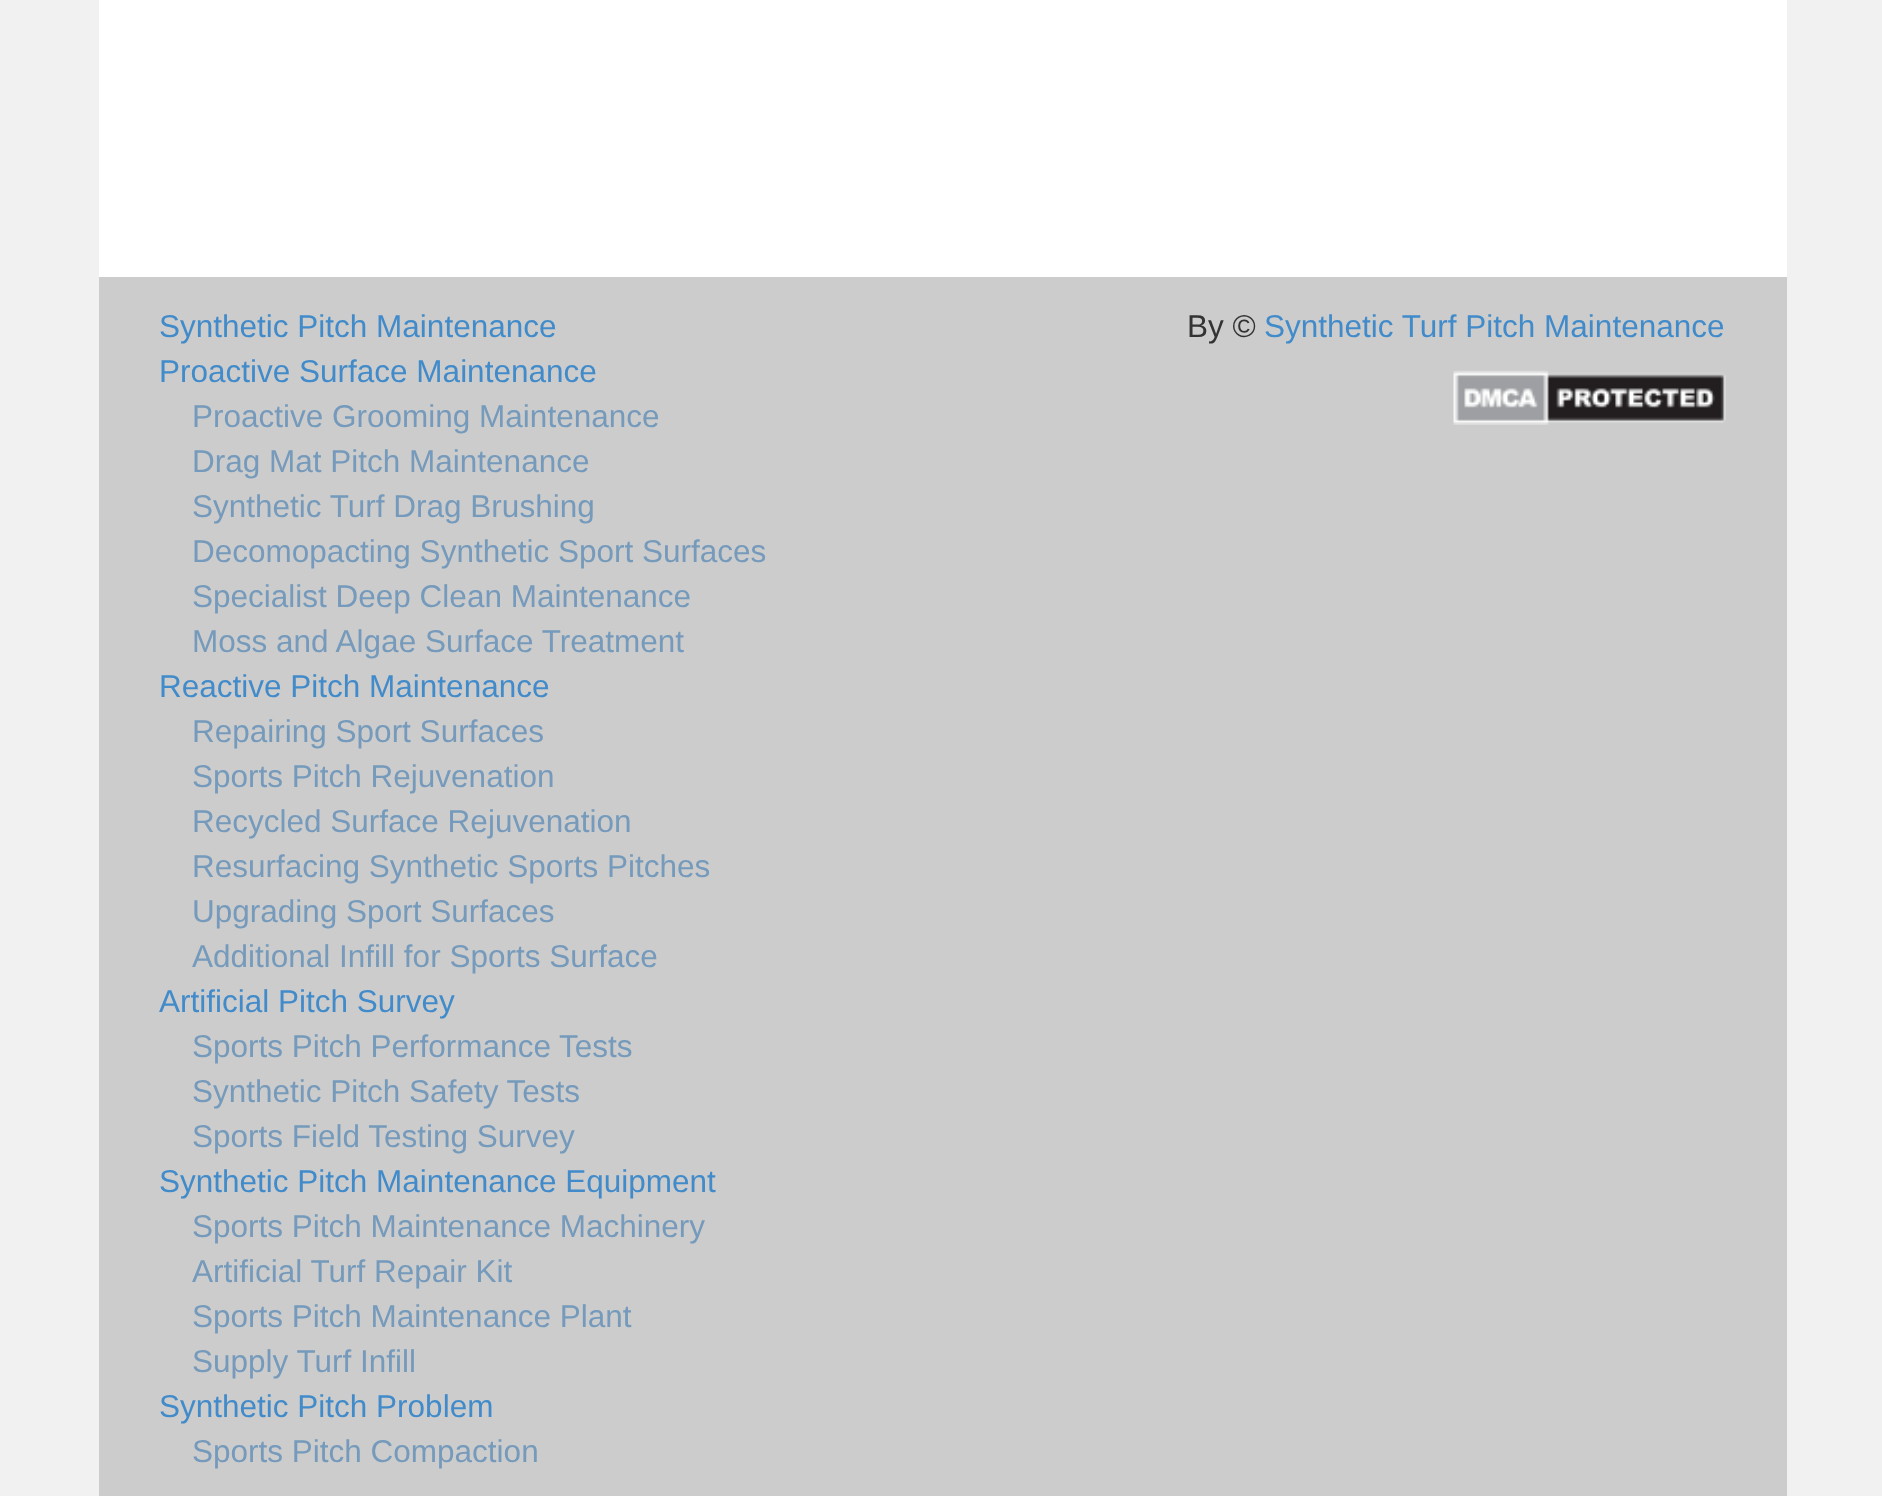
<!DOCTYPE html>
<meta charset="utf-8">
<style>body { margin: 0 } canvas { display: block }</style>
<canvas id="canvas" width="1882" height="1496"></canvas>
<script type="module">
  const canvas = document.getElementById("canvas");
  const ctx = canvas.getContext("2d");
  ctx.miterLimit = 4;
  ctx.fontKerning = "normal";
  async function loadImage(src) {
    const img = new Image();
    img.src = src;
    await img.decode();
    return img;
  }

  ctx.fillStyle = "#f1f1f1";
  ctx.fillRect(0, 0, 1882, 1496);
  ctx.fillStyle = "#ffffff";
  ctx.fillRect(99, 0, 1688, 277);
  ctx.fillStyle = "#cccccc";
  ctx.fillRect(99, 277, 1688, 1219);
  ctx.font = "31.5px Liberation Sans";
  ctx.fillStyle = "#428bca";
  ctx.fillText("Synthetic Pitch Maintenance", 159, 337);
  ctx.fillText("Proactive Surface Maintenance", 159, 382);
  ctx.fillStyle = "#759abb";
  ctx.fillText("Proactive Grooming Maintenance", 192, 427);
  ctx.fillText("Drag Mat Pitch Maintenance", 192, 472);
  ctx.fillText("Synthetic Turf Drag Brushing", 192, 517);
  ctx.fillText("Decomopacting Synthetic Sport Surfaces", 192, 562);
  ctx.fillText("Specialist Deep Clean Maintenance", 192, 607);
  ctx.fillText("Moss and Algae Surface Treatment", 192, 652);
  ctx.fillStyle = "#428bca";
  ctx.fillText("Reactive Pitch Maintenance", 159, 697);
  ctx.fillStyle = "#759abb";
  ctx.fillText("Repairing Sport Surfaces", 192, 742);
  ctx.fillText("Sports Pitch Rejuvenation", 192, 787);
  ctx.fillText("Recycled Surface Rejuvenation", 192, 832);
  ctx.fillText("Resurfacing Synthetic Sports Pitches", 192, 877);
  ctx.fillText("Upgrading Sport Surfaces", 192, 922);
  ctx.fillText("Additional Infill for Sports Surface", 192, 967);
  ctx.fillStyle = "#428bca";
  ctx.fillText("Artificial Pitch Survey", 159, 1012);
  ctx.fillStyle = "#759abb";
  ctx.fillText("Sports Pitch Performance Tests", 192, 1057);
  ctx.fillText("Synthetic Pitch Safety Tests", 192, 1102);
  ctx.fillText("Sports Field Testing Survey", 192, 1147);
  ctx.fillStyle = "#428bca";
  ctx.fillText("Synthetic Pitch Maintenance Equipment", 159, 1192);
  ctx.fillStyle = "#759abb";
  ctx.fillText("Sports Pitch Maintenance Machinery", 192, 1237);
  ctx.fillText("Artificial Turf Repair Kit", 192, 1282);
  ctx.fillText("Sports Pitch Maintenance Plant", 192, 1327);
  ctx.fillText("Supply Turf Infill", 192, 1372);
  ctx.fillStyle = "#428bca";
  ctx.fillText("Synthetic Pitch Problem", 159, 1417);
  ctx.fillStyle = "#759abb";
  ctx.fillText("Sports Pitch Compaction", 192, 1462);
  ctx.fillStyle = "#333333";
  ctx.fillText("By ©", 1187, 337);
  ctx.fillStyle = "#428bca";
  ctx.fillText("Synthetic Turf Pitch Maintenance", 1264, 337);
  ctx.drawImage(await loadImage("img1.png"), 1453, 370, 273, 55);
</script>
